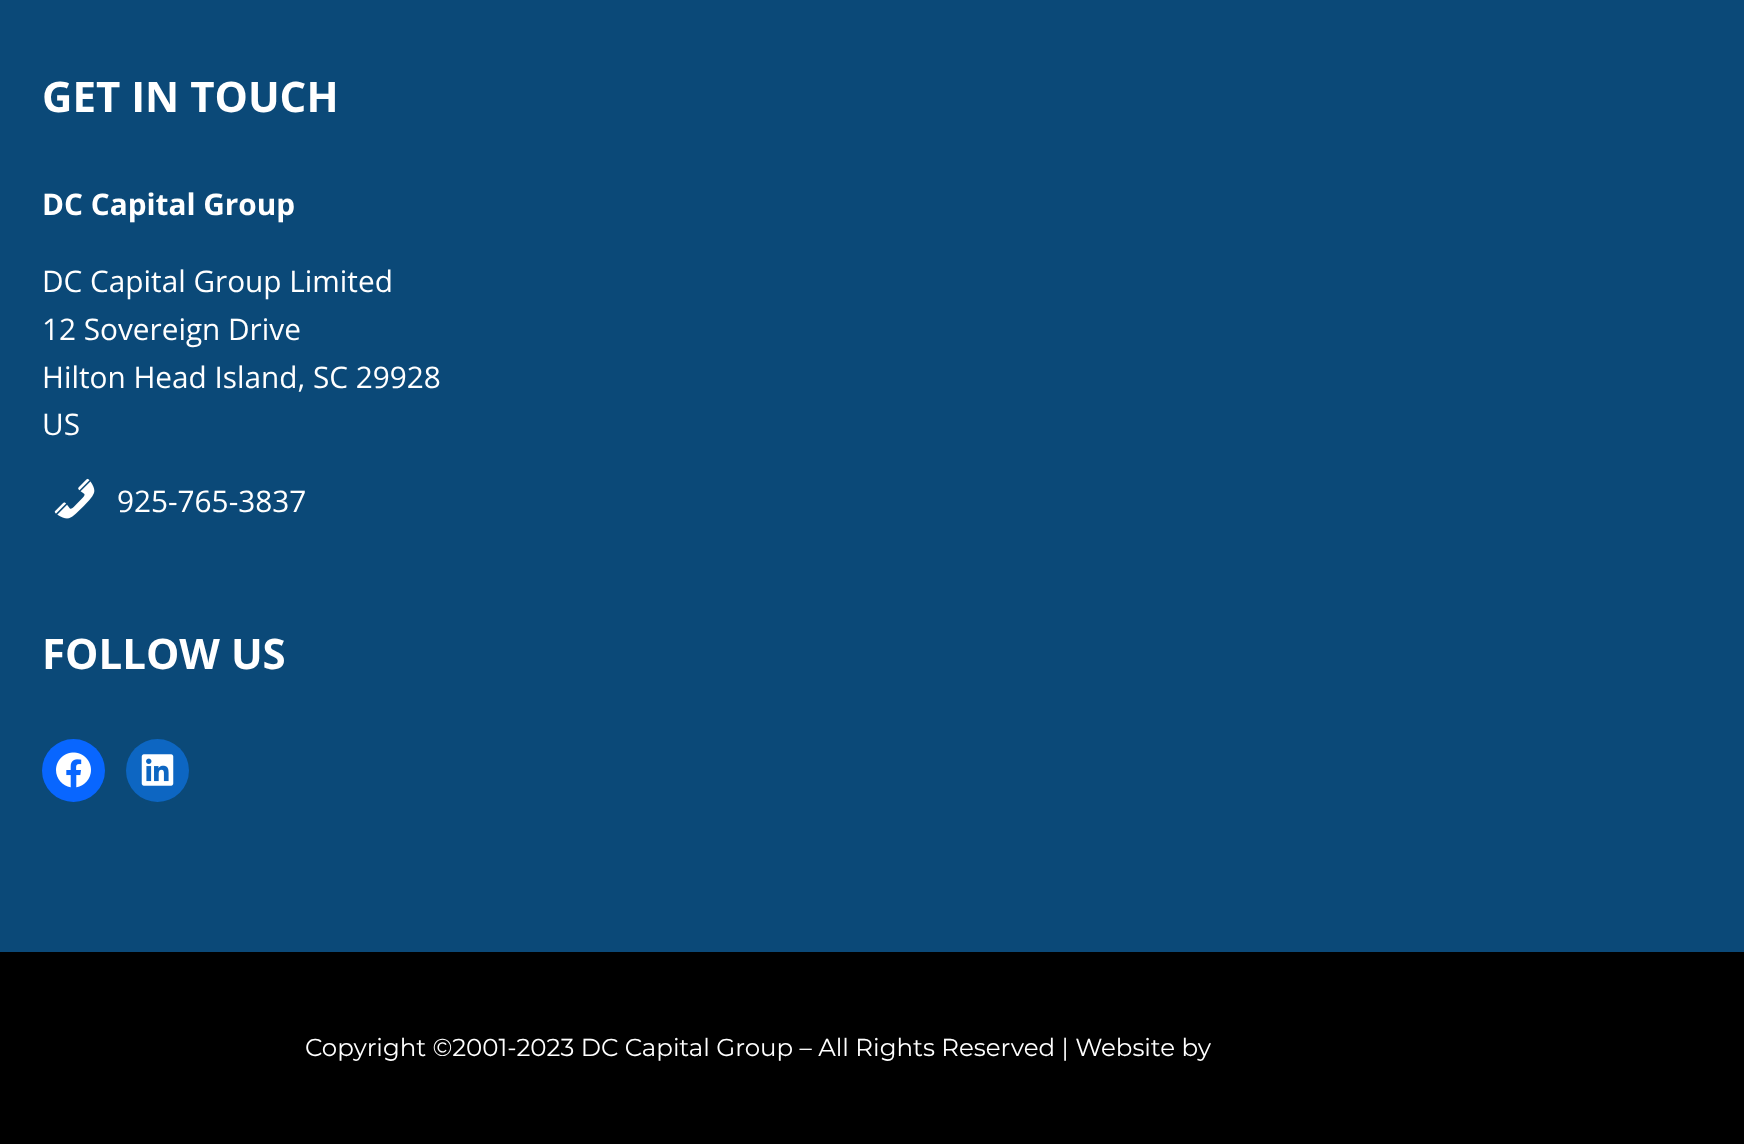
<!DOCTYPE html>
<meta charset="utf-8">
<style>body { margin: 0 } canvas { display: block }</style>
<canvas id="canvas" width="1744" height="1144"></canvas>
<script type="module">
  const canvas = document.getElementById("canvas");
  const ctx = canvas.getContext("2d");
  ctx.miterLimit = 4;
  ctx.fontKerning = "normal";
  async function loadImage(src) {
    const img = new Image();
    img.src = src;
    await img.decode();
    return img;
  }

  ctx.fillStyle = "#0b4978";
  ctx.fillRect(0, 0, 1744, 1144);
  ctx.font = "bold 42px Open Sans";
  ctx.fillStyle = "#ffffff";
  ctx.fillText("GET IN TOUCH", 42, 112);
  ctx.font = "bold 29.75px Open Sans";
  ctx.fillText("DC Capital Group", 42, 215);
  ctx.font = "29.75px Open Sans";
  ctx.fillText("DC Capital Group Limited", 42, 292);
  ctx.fillText("12 Sovereign Drive", 42, 340);
  ctx.fillText("Hilton Head Island, SC 29928", 42, 388);
  ctx.fillText("US", 42, 435);
  ctx.drawImage(await loadImage("img1.png"), 54, 478, 41, 41);
  ctx.fillText("925-765-3837", 117, 512);
  ctx.font = "bold 42px Open Sans";
  ctx.fillText("FOLLOW US", 42, 669);
  ctx.fillStyle = "#0866ff";
  ctx.beginPath();
  ctx.arc(73.5, 770.5, 31.5, 0, Math.PI * 2);
  ctx.fill();
  ctx.drawImage(await loadImage("img2.png"), 56, 752, 35, 36);
  ctx.fillStyle = "#0d66c2";
  ctx.beginPath();
  ctx.arc(157.5, 770.5, 31.5, 0, Math.PI * 2);
  ctx.fill();
  ctx.drawImage(await loadImage("img3.png"), 141, 754, 33, 32);
  ctx.fillStyle = "#000000";
  ctx.fillRect(0, 952, 1744, 192);
  ctx.font = "24.5px Montserrat";
  ctx.fillStyle = "#ffffff";
  ctx.fillText("Copyright ©2001-2023 DC Capital Group – All Rights Reserved | Website by", 305, 1056);
</script>
